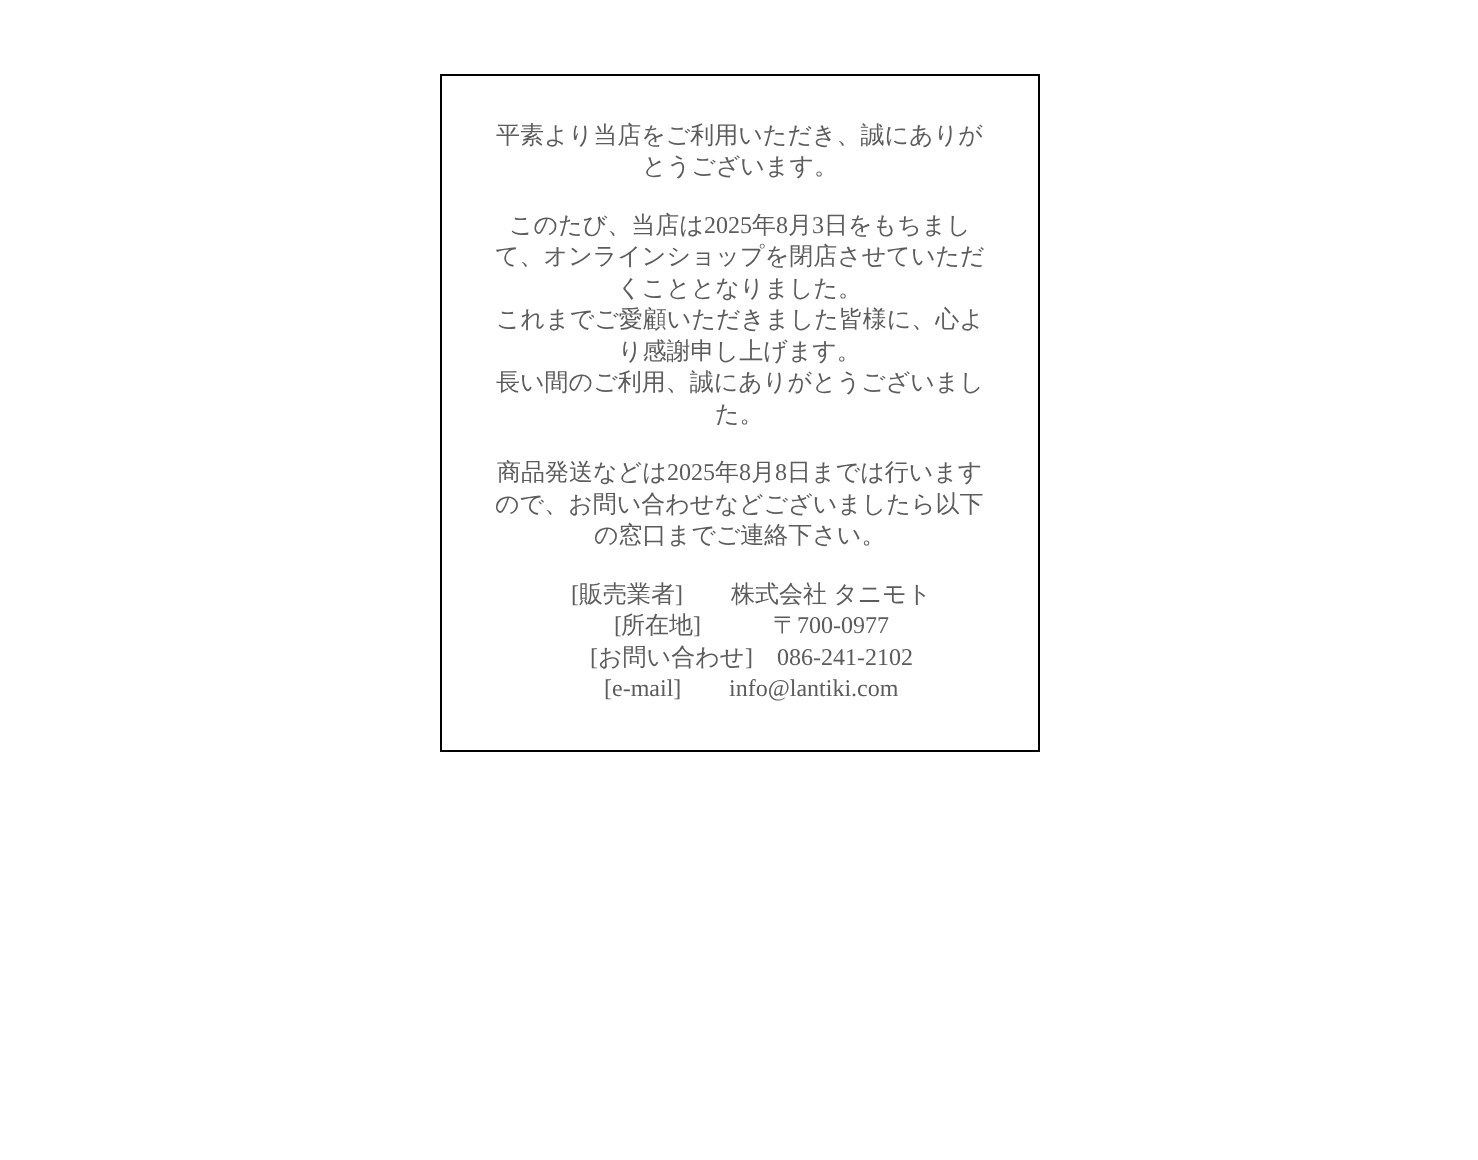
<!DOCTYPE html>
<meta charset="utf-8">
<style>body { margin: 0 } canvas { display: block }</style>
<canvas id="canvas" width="1478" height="1160"></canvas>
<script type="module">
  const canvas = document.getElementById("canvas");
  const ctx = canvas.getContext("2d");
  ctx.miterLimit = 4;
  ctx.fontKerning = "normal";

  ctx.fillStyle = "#ffffff";
  ctx.fillRect(0, 0, 1478, 1160);
  ctx.strokeStyle = "#000000";
  ctx.lineWidth = 2;
  ctx.strokeRect(441, 75, 598, 676);
  ctx.font = "500 24px WenQuanYi Zen Hei";
  ctx.fillStyle = "#5c5c5c";
  ctx.fillText("平素より当店をご利用いただき、誠にありが", 496, 143);
  ctx.fillText("とうございます。", 642, 174);
  ctx.fillText("このたび、当店は", 509, 233);
  ctx.font = "24px Liberation Serif";
  ctx.fillText("2025", 704, 233);
  ctx.font = "500 24px WenQuanYi Zen Hei";
  ctx.fillText("年", 752, 233);
  ctx.font = "24px Liberation Serif";
  ctx.fillText("8", 776, 233);
  ctx.font = "500 24px WenQuanYi Zen Hei";
  ctx.fillText("月", 788, 233);
  ctx.font = "24px Liberation Serif";
  ctx.fillText("3", 812, 233);
  ctx.font = "500 24px WenQuanYi Zen Hei";
  ctx.fillText("日をもちまし", 824, 233);
  ctx.fillText("て、オンラインショップを閉店させていただ", 495, 264);
  ctx.fillText("くこととなりました。", 617, 296);
  ctx.fillText("これまでご愛顧いただきました皆様に、心よ", 496, 327);
  ctx.fillText("り感謝申し上げます。", 618, 359);
  ctx.fillText("長い間のご利用、誠にありがとうございまし", 496, 390);
  ctx.fillText("た。", 715, 422);
  ctx.fillText("商品発送などは", 497, 480);
  ctx.font = "24px Liberation Serif";
  ctx.fillText("2025", 667, 480);
  ctx.font = "500 24px WenQuanYi Zen Hei";
  ctx.fillText("年", 715, 480);
  ctx.font = "24px Liberation Serif";
  ctx.fillText("8", 739, 480);
  ctx.font = "500 24px WenQuanYi Zen Hei";
  ctx.fillText("月", 751, 480);
  ctx.font = "24px Liberation Serif";
  ctx.fillText("8", 775, 480);
  ctx.font = "500 24px WenQuanYi Zen Hei";
  ctx.fillText("日までは行います", 787, 480);
  ctx.fillText("ので、お問い合わせなどございましたら以下", 495, 512);
  ctx.fillText("の窓口までご連絡下さい。", 594, 543);
  ctx.font = "24px Liberation Serif";
  ctx.fillText("[", 571, 602);
  ctx.font = "500 24px WenQuanYi Zen Hei";
  ctx.fillText("販売業者", 579, 602);
  ctx.font = "24px Liberation Serif";
  ctx.fillText("]", 675, 602);
  ctx.wordSpacing = "-1px";
  ctx.font = "500 24px WenQuanYi Zen Hei";
  ctx.fillText("株式会社 タニモト", 731, 602);
  ctx.wordSpacing = "0px";
  ctx.font = "24px Liberation Serif";
  ctx.fillText("[", 614, 633);
  ctx.font = "500 24px WenQuanYi Zen Hei";
  ctx.fillText("所在地", 621, 633);
  ctx.font = "24px Liberation Serif";
  ctx.fillText("]", 693, 633);
  ctx.font = "500 24px WenQuanYi Zen Hei";
  ctx.fillText("〒", 773, 633);
  ctx.font = "24px Liberation Serif";
  ctx.fillText("700-0977", 797, 633);
  ctx.fillText("[", 590, 665);
  ctx.font = "500 24px WenQuanYi Zen Hei";
  ctx.fillText("お問い合わせ", 598, 665);
  ctx.font = "24px Liberation Serif";
  ctx.fillText("]", 745, 665);
  ctx.fillText("086-241-2102", 777, 665);
  ctx.fillText("[e-mail]", 604, 696);
  ctx.fillText("info@lantiki.com", 729, 696);
</script>
